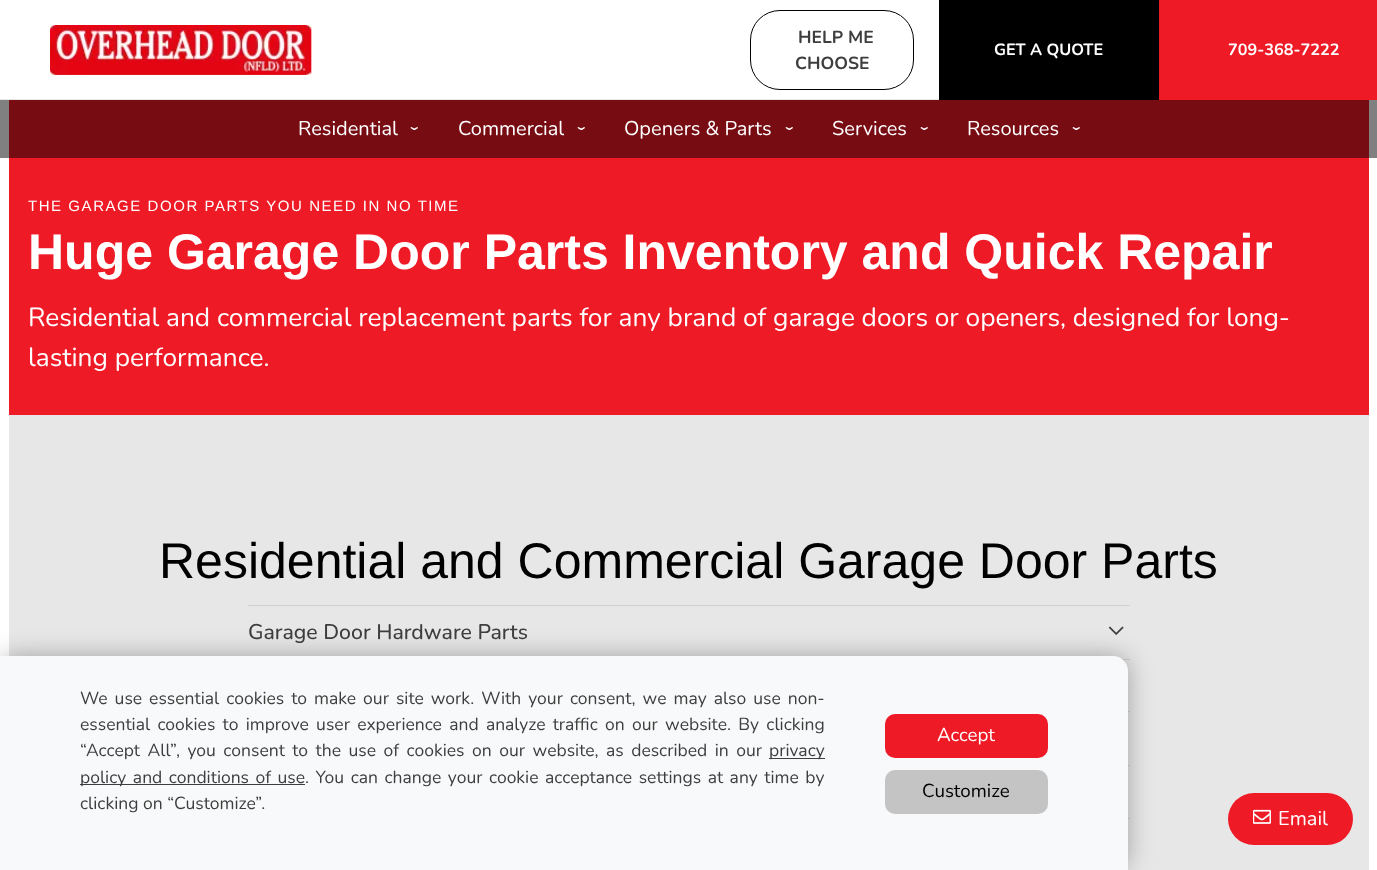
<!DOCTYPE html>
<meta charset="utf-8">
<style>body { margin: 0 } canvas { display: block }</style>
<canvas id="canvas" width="1377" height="870"></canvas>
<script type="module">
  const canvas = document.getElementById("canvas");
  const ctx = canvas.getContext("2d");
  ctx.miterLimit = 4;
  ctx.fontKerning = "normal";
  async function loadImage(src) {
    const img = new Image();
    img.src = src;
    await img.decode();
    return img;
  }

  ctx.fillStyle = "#ffffff";
  ctx.fillRect(0, 0, 1377, 870);
  ctx.fillStyle = "#808080";
  ctx.fillRect(0, 100, 1377, 58);
  ctx.fillStyle = "#e7e7e7";
  ctx.fillRect(0, 99, 939, 1);
  ctx.drawImage(await loadImage("img1.png"), 50, 25, 262, 50);
  ctx.beginPath();
  ctx.roundRect(750.5, 10.5, 163, 79, 29.5);
  ctx.strokeStyle = "#000000";
  ctx.stroke();
  ctx.font = "bold 17.5px Nunito";
  ctx.fillStyle = "#3d3e3d";
  ctx.fillText("HELP ME", 798, 43);
  ctx.fillText("CHOOSE", 795, 69);
  ctx.fillStyle = "#000000";
  ctx.fillRect(939, 0, 220, 100);
  ctx.font = "bold 16.25px Nunito";
  ctx.fillStyle = "#ffffff";
  ctx.fillText("GET A QUOTE", 994, 55);
  ctx.fillStyle = "#ee1a26";
  ctx.fillRect(1159, 0, 218, 100);
  ctx.fillStyle = "#ffffff";
  ctx.fillText("709-368-7222", 1228, 55);
  ctx.fillStyle = "#770d13";
  ctx.fillRect(9, 100, 1360, 58);
  ctx.font = "20px Nunito";
  ctx.fillStyle = "#ffffff";
  ctx.fillText("Residential", 298, 135);
  ctx.save();
  ctx.translate(409, 126);
  ctx.rotate(90 * Math.PI / 180);
  ctx.fillText("›", 0, 0);
  ctx.restore();
  ctx.fillText("Commercial", 458, 135);
  ctx.save();
  ctx.translate(576, 126);
  ctx.rotate(90 * Math.PI / 180);
  ctx.fillText("›", 0, 0);
  ctx.restore();
  ctx.fillText("Openers & Parts", 624, 135);
  ctx.save();
  ctx.translate(784, 126);
  ctx.rotate(90 * Math.PI / 180);
  ctx.fillText("›", 0, 0);
  ctx.restore();
  ctx.fillText("Services", 832, 135);
  ctx.save();
  ctx.translate(919, 126);
  ctx.rotate(90 * Math.PI / 180);
  ctx.fillText("›", 0, 0);
  ctx.restore();
  ctx.fillText("Resources", 967, 135);
  ctx.save();
  ctx.translate(1071, 126);
  ctx.rotate(90 * Math.PI / 180);
  ctx.fillText("›", 0, 0);
  ctx.restore();
  ctx.fillStyle = "#ee1a26";
  ctx.fillRect(9, 158, 1360, 257);
  ctx.letterSpacing = "1.55px";
  ctx.font = "15px Liberation Sans";
  ctx.fillStyle = "#ffffff";
  ctx.fillText("THE GARAGE DOOR PARTS YOU NEED IN NO TIME", 28, 211);
  ctx.letterSpacing = "0px";
  ctx.font = "bold 50px Liberation Sans";
  ctx.fillText("Huge Garage Door Parts Inventory and Quick Repair", 28, 269);
  ctx.font = "26.25px Nunito";
  ctx.fillText("Residential and commercial replacement parts for any brand of garage doors or openers, designed for long-", 28, 326);
  ctx.fillText("lasting performance.", 28, 366);
  ctx.fillStyle = "#e7e7e7";
  ctx.fillRect(9, 415, 1360, 455);
  ctx.font = "50px Liberation Sans";
  ctx.fillStyle = "#000000";
  ctx.fillText("Residential and Commercial Garage Door Parts", 159, 578);
  ctx.fillStyle = "#d0d0d0";
  ctx.fillRect(248, 605, 882, 1);
  ctx.font = "500 21.25px Nunito";
  ctx.fillStyle = "#3d3e3d";
  ctx.fillText("Garage Door Hardware Parts", 248, 639);
  ctx.drawImage(await loadImage("img2.png"), 1108, 626, 16, 9);
  ctx.fillStyle = "#d0d0d0";
  ctx.fillRect(1122, 659, 8, 1);
  ctx.fillRect(1128, 711, 2, 1);
  ctx.fillRect(1128, 765, 2, 1);
  ctx.fillRect(1128, 818, 2, 1);
  ctx.fillStyle = "#ee1a26";
  ctx.beginPath();
  ctx.roundRect(1228, 793, 125, 52, 26);
  ctx.fill();
  ctx.drawImage(await loadImage("img3.png"), 1253, 809, 18, 15);
  ctx.font = "20px Nunito";
  ctx.fillStyle = "#ffffff";
  ctx.fillText("Email", 1278, 825);
  ctx.fillStyle = "rgba(0, 0, 0, 0.3)";
  ctx.filter = "blur(12.5px)";
  ctx.beginPath();
  ctx.roundRect(0, 656, 1128, 214, 15);
  ctx.fill();
  ctx.filter = "none";
  ctx.fillStyle = "#f8f9fa";
  ctx.beginPath();
  ctx.roundRect(0, 656, 1128, 214, [0, 15, 0, 0]);
  ctx.fill();
  ctx.wordSpacing = "2.5px";
  ctx.font = "17.5px Nunito";
  ctx.fillStyle = "#3d3e3d";
  ctx.fillText("We use essential cookies to make our site work. With your consent, we may also use non-", 80, 704);
  ctx.wordSpacing = "2.75px";
  ctx.fillText("essential cookies to improve user experience and analyze traffic on our website. By clicking", 80, 730);
  ctx.wordSpacing = "3px";
  ctx.fillText("“Accept All”, you consent to the use of cookies on our website, as described in our", 80, 756);
  ctx.fillRect(769, 758, 56, 1);
  ctx.wordSpacing = "0px";
  ctx.fillText("privacy", 769, 756);
  ctx.fillRect(80, 784, 225, 1);
  ctx.wordSpacing = "2px";
  ctx.fillText("policy and conditions of use. You can change your cookie acceptance settings at any time by", 80, 783);
  ctx.wordSpacing = "0px";
  ctx.fillText("clicking on “Customize”.", 80, 809);
  ctx.fillStyle = "#ee1a26";
  ctx.beginPath();
  ctx.roundRect(885, 714, 163, 44, 10);
  ctx.fill();
  ctx.font = "18.75px Nunito";
  ctx.fillStyle = "#ffffff";
  ctx.fillText("Accept", 937, 741);
  ctx.fillStyle = "#c4c4c4";
  ctx.beginPath();
  ctx.roundRect(885, 770, 163, 44, 10);
  ctx.fill();
  ctx.fillStyle = "#000000";
  ctx.fillText("Customize", 922, 797);
</script>
